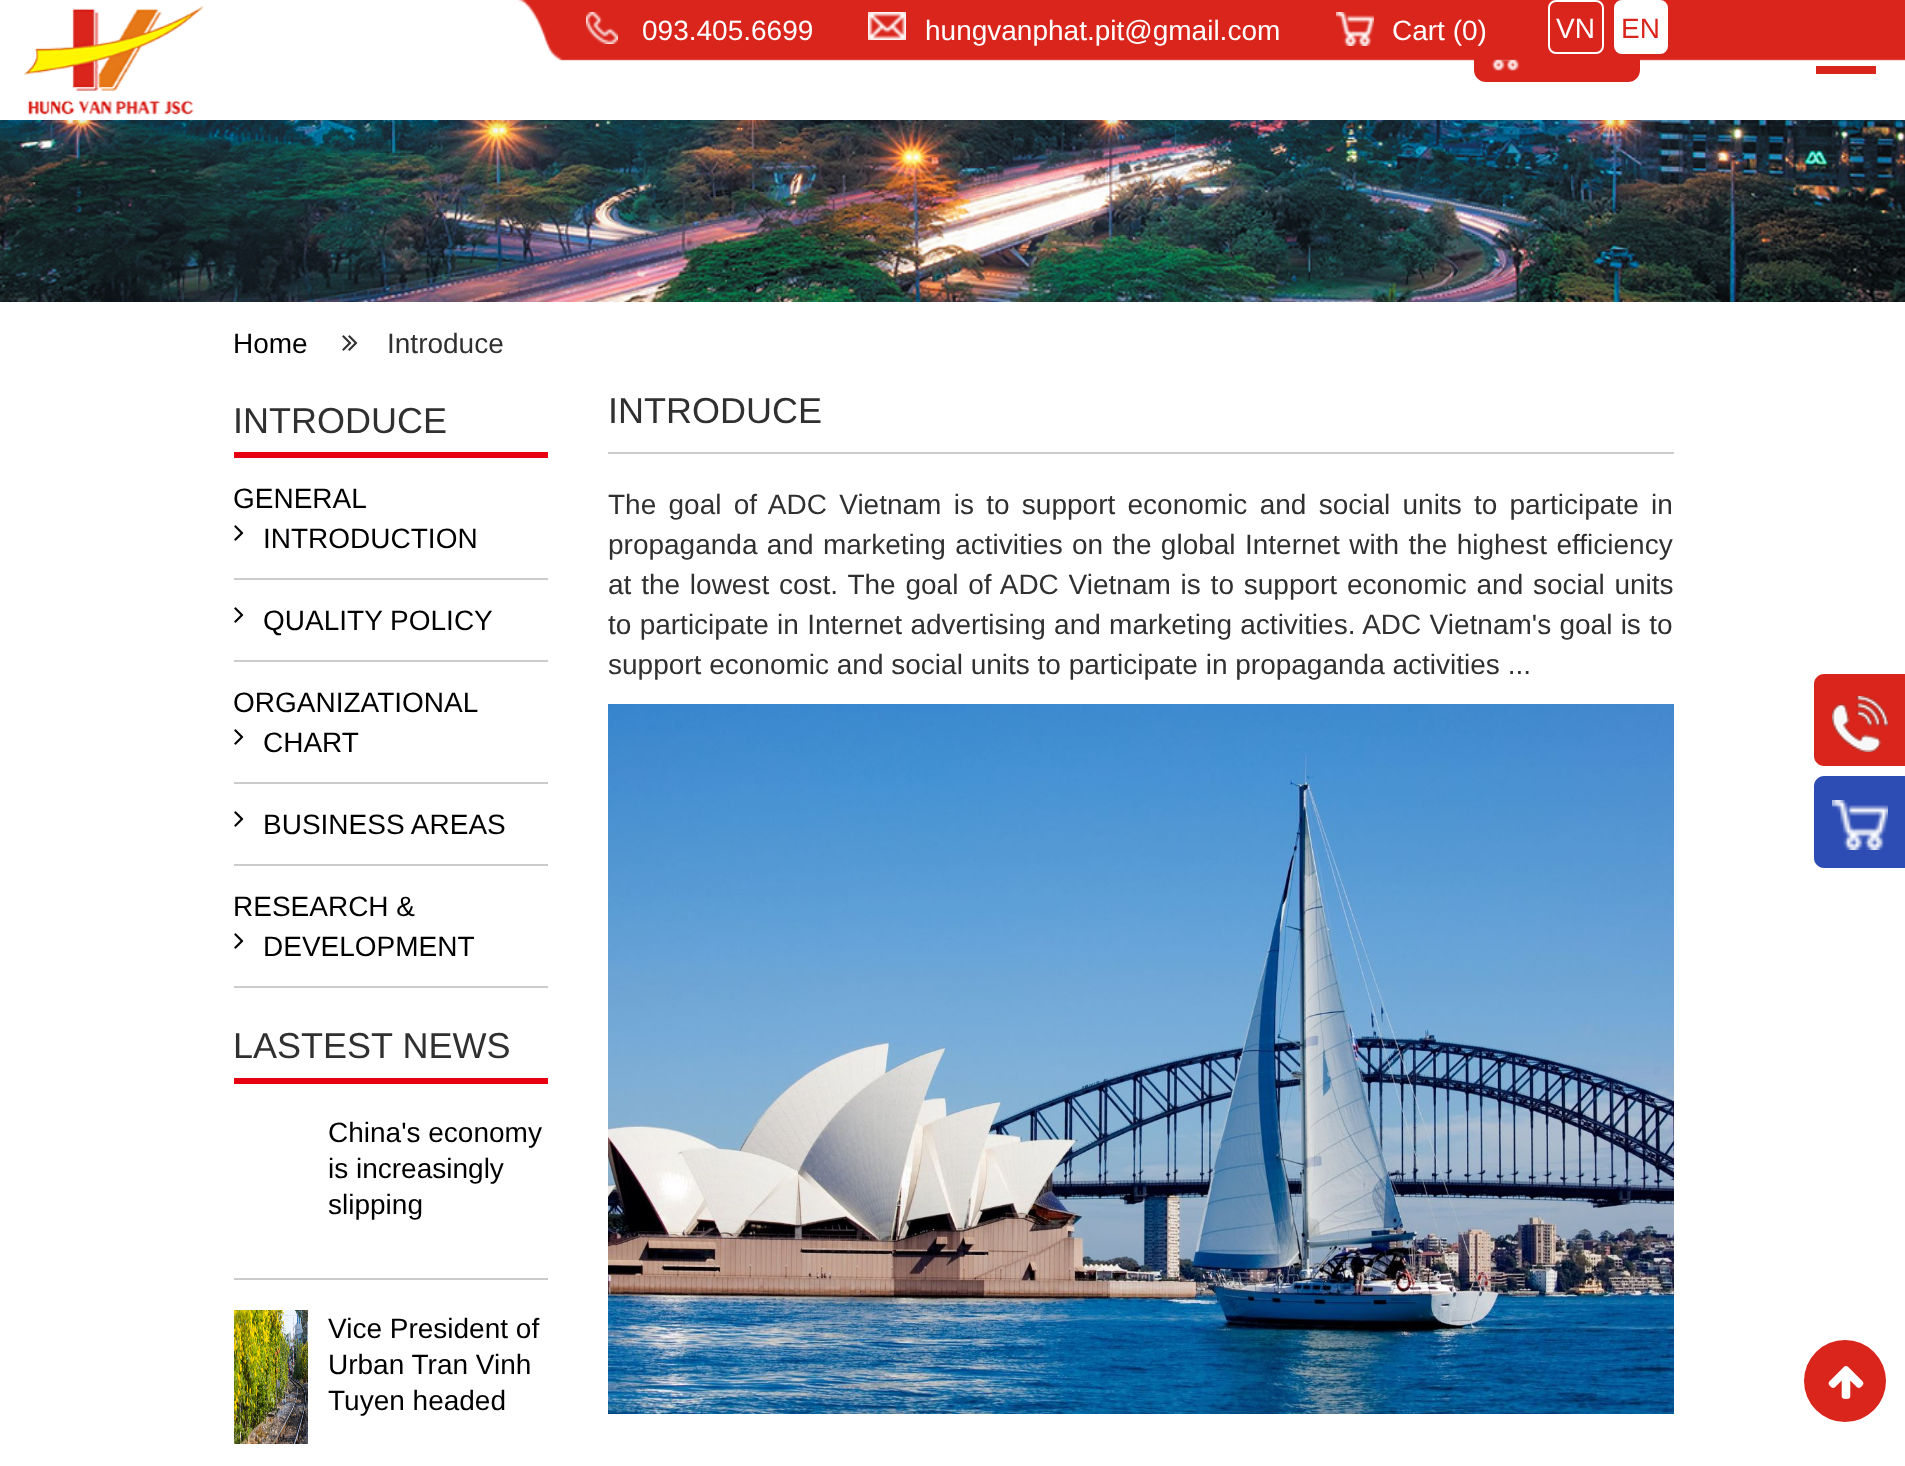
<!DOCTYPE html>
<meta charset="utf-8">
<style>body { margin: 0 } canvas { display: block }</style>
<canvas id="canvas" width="1905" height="1466"></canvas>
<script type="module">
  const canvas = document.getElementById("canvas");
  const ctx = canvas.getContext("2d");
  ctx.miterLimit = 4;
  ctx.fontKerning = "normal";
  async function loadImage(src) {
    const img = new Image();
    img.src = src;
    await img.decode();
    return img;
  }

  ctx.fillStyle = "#ffffff";
  ctx.fillRect(0, 0, 1905, 1466);
  ctx.drawImage(await loadImage("img7.png"), 0, 120, 1905, 182);
  ctx.fillStyle = "rgba(0, 0, 0, 0.1)";
  ctx.filter = "blur(7px)";
  ctx.beginPath();
  ctx.rect(0, 4, 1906, 120);
  ctx.fill();
  ctx.filter = "none";
  ctx.fillStyle = "#ffffff";
  ctx.fillRect(0, 0, 1905, 120);
  ctx.drawImage(await loadImage("img1.png"), 24, 6, 180, 109);
  ctx.fillStyle = "#da251c";
  ctx.beginPath();
  ctx.roundRect(1474, 22, 166, 60, 12);
  ctx.fill();
  ctx.drawImage(await loadImage("img2.png"), 1491, 59, 29, 12);
  ctx.drawImage(await loadImage("img3.png"), 517, 0, 1388, 61);
  ctx.drawImage(await loadImage("img4.png"), 586, 12, 32, 32);
  ctx.font = "28px Liberation Sans";
  ctx.fillStyle = "#ffffff";
  ctx.fillText("093.405.6699", 642, 40);
  ctx.drawImage(await loadImage("img5.png"), 868, 12, 38, 28);
  ctx.fillText("hungvanphat.pit@gmail.com", 925, 40);
  ctx.drawImage(await loadImage("img6.png"), 1336, 12, 38, 34);
  ctx.fillText("Cart (0)", 1392, 40);
  ctx.beginPath();
  ctx.roundRect(1549, 1, 54, 52, 7);
  ctx.strokeStyle = "#ffffff";
  ctx.lineWidth = 2;
  ctx.stroke();
  ctx.fillText("VN", 1556, 38);
  ctx.beginPath();
  ctx.roundRect(1615, 1, 52, 52, 7);
  ctx.fill();
  ctx.stroke();
  ctx.fillStyle = "#da251c";
  ctx.fillText("EN", 1621, 38);
  ctx.fillRect(1816, 66, 60, 8);
  ctx.fillStyle = "#000000";
  ctx.fillText("Home", 233, 353);
  ctx.drawImage(await loadImage("img8.png"), 342, 335, 16, 16);
  ctx.fillStyle = "#303030";
  ctx.fillText("Introduce", 387, 353);
  ctx.fillStyle = "#e70012";
  ctx.fillRect(234, 452, 314, 6);
  ctx.font = "36px Liberation Sans";
  ctx.fillStyle = "#303030";
  ctx.fillText("INTRODUCE", 233, 433);
  ctx.fillStyle = "#cccccc";
  ctx.fillRect(234, 578, 314, 2);
  ctx.font = "28px Liberation Sans";
  ctx.fillStyle = "#000000";
  ctx.fillText("GENERAL", 233, 508);
  ctx.drawImage(await loadImage("img9.png"), 234, 525, 10, 16);
  ctx.fillText("INTRODUCTION", 263, 548);
  ctx.fillStyle = "#cccccc";
  ctx.fillRect(234, 660, 314, 2);
  ctx.drawImage(await loadImage("img9.png"), 234, 607, 10, 16);
  ctx.fillStyle = "#000000";
  ctx.fillText("QUALITY POLICY", 263, 630);
  ctx.fillStyle = "#cccccc";
  ctx.fillRect(234, 782, 314, 2);
  ctx.fillStyle = "#000000";
  ctx.fillText("ORGANIZATIONAL", 233, 712);
  ctx.drawImage(await loadImage("img9.png"), 234, 729, 10, 16);
  ctx.fillText("CHART", 263, 752);
  ctx.fillStyle = "#cccccc";
  ctx.fillRect(234, 864, 314, 2);
  ctx.drawImage(await loadImage("img9.png"), 234, 811, 10, 16);
  ctx.fillStyle = "#000000";
  ctx.fillText("BUSINESS AREAS", 263, 834);
  ctx.fillStyle = "#cccccc";
  ctx.fillRect(234, 986, 314, 2);
  ctx.fillStyle = "#000000";
  ctx.fillText("RESEARCH &", 233, 916);
  ctx.drawImage(await loadImage("img9.png"), 234, 933, 10, 16);
  ctx.fillText("DEVELOPMENT", 263, 956);
  ctx.fillStyle = "#e70012";
  ctx.fillRect(234, 1078, 314, 6);
  ctx.font = "36px Liberation Sans";
  ctx.fillStyle = "#303030";
  ctx.fillText("LASTEST NEWS", 233, 1058);
  ctx.fillStyle = "#cccccc";
  ctx.fillRect(234, 1278, 314, 2);
  ctx.font = "28px Liberation Sans";
  ctx.fillStyle = "#000000";
  ctx.fillText("China's economy", 328, 1142);
  ctx.fillText("is increasingly", 328, 1178);
  ctx.fillText("slipping", 328, 1214);
  ctx.drawImage(await loadImage("img10.png"), 234, 1310, 74, 134);
  ctx.fillText("Vice President of", 328, 1338);
  ctx.fillText("Urban Tran Vinh", 328, 1374);
  ctx.fillText("Tuyen headed", 328, 1410);
  ctx.fillStyle = "#cccccc";
  ctx.fillRect(608, 452, 1066, 2);
  ctx.font = "36px Liberation Sans";
  ctx.fillStyle = "#303030";
  ctx.fillText("INTRODUCE", 608, 423);
  ctx.wordSpacing = "4.5px";
  ctx.font = "28px Liberation Sans";
  ctx.fillText("The goal of ADC Vietnam is to support economic and social units to participate in", 608, 514);
  ctx.wordSpacing = "1.6px";
  ctx.fillText("propaganda and marketing activities on the global Internet with the highest efficiency", 608, 554);
  ctx.wordSpacing = "2px";
  ctx.fillText("at the lowest cost. The goal of ADC Vietnam is to support economic and social units", 608, 594);
  ctx.wordSpacing = "0.5px";
  ctx.fillText("to participate in Internet advertising and marketing activities. ADC Vietnam's goal is to", 608, 634);
  ctx.wordSpacing = "0px";
  ctx.fillText("support economic and social units to participate in propaganda activities ...", 608, 674);
  ctx.drawImage(await loadImage("img11.png"), 608, 704, 1066, 710);
  ctx.fillStyle = "#da251c";
  ctx.beginPath();
  ctx.moveTo(1824, 674);
  ctx.lineTo(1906, 674);
  ctx.lineTo(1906, 766);
  ctx.lineTo(1824, 766);
  ctx.bezierCurveTo(1818.5, 766, 1814, 761.5, 1814, 756);
  ctx.lineTo(1814, 684);
  ctx.bezierCurveTo(1814, 678.5, 1818.5, 674, 1824, 674);
  ctx.closePath();
  ctx.fill();
  ctx.drawImage(await loadImage("img12.png"), 1832, 696, 56, 56);
  ctx.fillStyle = "#2d4cb4";
  ctx.beginPath();
  ctx.moveTo(1824, 776);
  ctx.lineTo(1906, 776);
  ctx.lineTo(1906, 868);
  ctx.lineTo(1824, 868);
  ctx.bezierCurveTo(1818.5, 868, 1814, 863.5, 1814, 858);
  ctx.lineTo(1814, 786);
  ctx.bezierCurveTo(1814, 780.5, 1818.5, 776, 1824, 776);
  ctx.closePath();
  ctx.fill();
  ctx.drawImage(await loadImage("img13.png"), 1832, 800, 56, 50);
  ctx.fillStyle = "#da251c";
  ctx.beginPath();
  ctx.arc(1845, 1381, 41, 0, Math.PI * 2);
  ctx.fill();
  ctx.drawImage(await loadImage("img14.png"), 1828, 1366, 36, 33);
</script>
